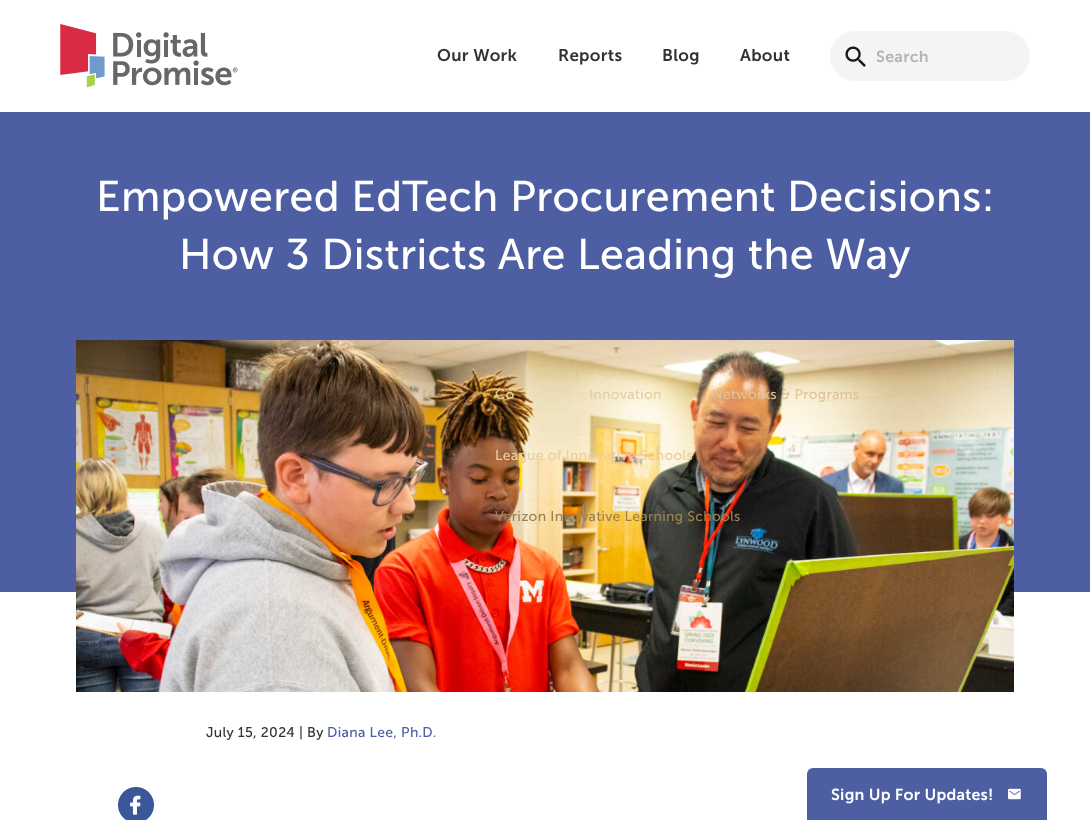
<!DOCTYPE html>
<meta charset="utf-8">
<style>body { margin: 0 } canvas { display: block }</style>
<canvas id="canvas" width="1090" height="820"></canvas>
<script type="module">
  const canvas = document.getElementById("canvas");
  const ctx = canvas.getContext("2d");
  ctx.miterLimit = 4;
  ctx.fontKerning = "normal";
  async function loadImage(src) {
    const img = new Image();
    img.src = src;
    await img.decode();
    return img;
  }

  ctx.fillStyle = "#ffffff";
  ctx.fillRect(0, 0, 1090, 820);
  ctx.drawImage(await loadImage("img1.png"), 60, 24, 178, 64);
  ctx.letterSpacing = "0.3px";
  ctx.font = "600 17px 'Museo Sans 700'";
  ctx.fillStyle = "#333333";
  ctx.fillText("Our Work", 437, 61);
  ctx.fillText("Reports", 558, 61);
  ctx.fillText("Blog", 662, 61);
  ctx.fillText("About", 740, 61);
  ctx.fillStyle = "#f4f4f4";
  ctx.beginPath();
  ctx.roundRect(830, 31, 200, 50, 25);
  ctx.fill();
  ctx.drawImage(await loadImage("img2.png"), 845, 46, 21, 21);
  ctx.font = "600 16px 'Museo Sans 700'";
  ctx.fillStyle = "#b4b4b4";
  ctx.fillText("Search", 876, 62);
  ctx.fillStyle = "#4d5ea3";
  ctx.fillRect(0, 112, 1090, 480);
  ctx.font = "43px 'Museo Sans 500'";
  ctx.fillStyle = "#ffffff";
  ctx.fillText("Empowered EdTech Procurement Decisions:", 96, 211);
  ctx.fillText("How 3 Districts Are Leading the Way", 179, 269);
  ctx.drawImage(await loadImage("img3.png"), 76, 340, 938, 352);
  ctx.font = "14px 'Museo Sans 500'";
  ctx.fillStyle = "#e1cfa9";
  ctx.fillText("Co", 495, 399);
  ctx.fillText("Innovation", 589, 399);
  ctx.fillStyle = "#e3c198";
  ctx.fillText("Networks & Programs", 712, 399);
  ctx.fillStyle = "#eace9e";
  ctx.fillText("League of Innovative Schools", 495, 460);
  ctx.fillStyle = "#9d8053";
  ctx.fillText("Verizon Innovative Learning Schools", 495, 521);
  ctx.fillStyle = "#333333";
  ctx.fillText("July 15, 2024 | By", 206, 737);
  ctx.fillStyle = "#4d5ea3";
  ctx.fillText("Diana Lee, Ph.D.", 327, 737);
  ctx.drawImage(await loadImage("img4.png"), 118, 787, 36, 33);
  ctx.beginPath();
  ctx.roundRect(807, 768, 240, 52, [6, 6, 0, 0]);
  ctx.fill();
  ctx.letterSpacing = "0.25px";
  ctx.font = "600 16px 'Museo Sans 700'";
  ctx.fillStyle = "#ffffff";
  ctx.fillText("Sign Up For Updates!", 831, 800);
  ctx.drawImage(await loadImage("img5.png"), 1008, 788, 13, 12);
</script>
